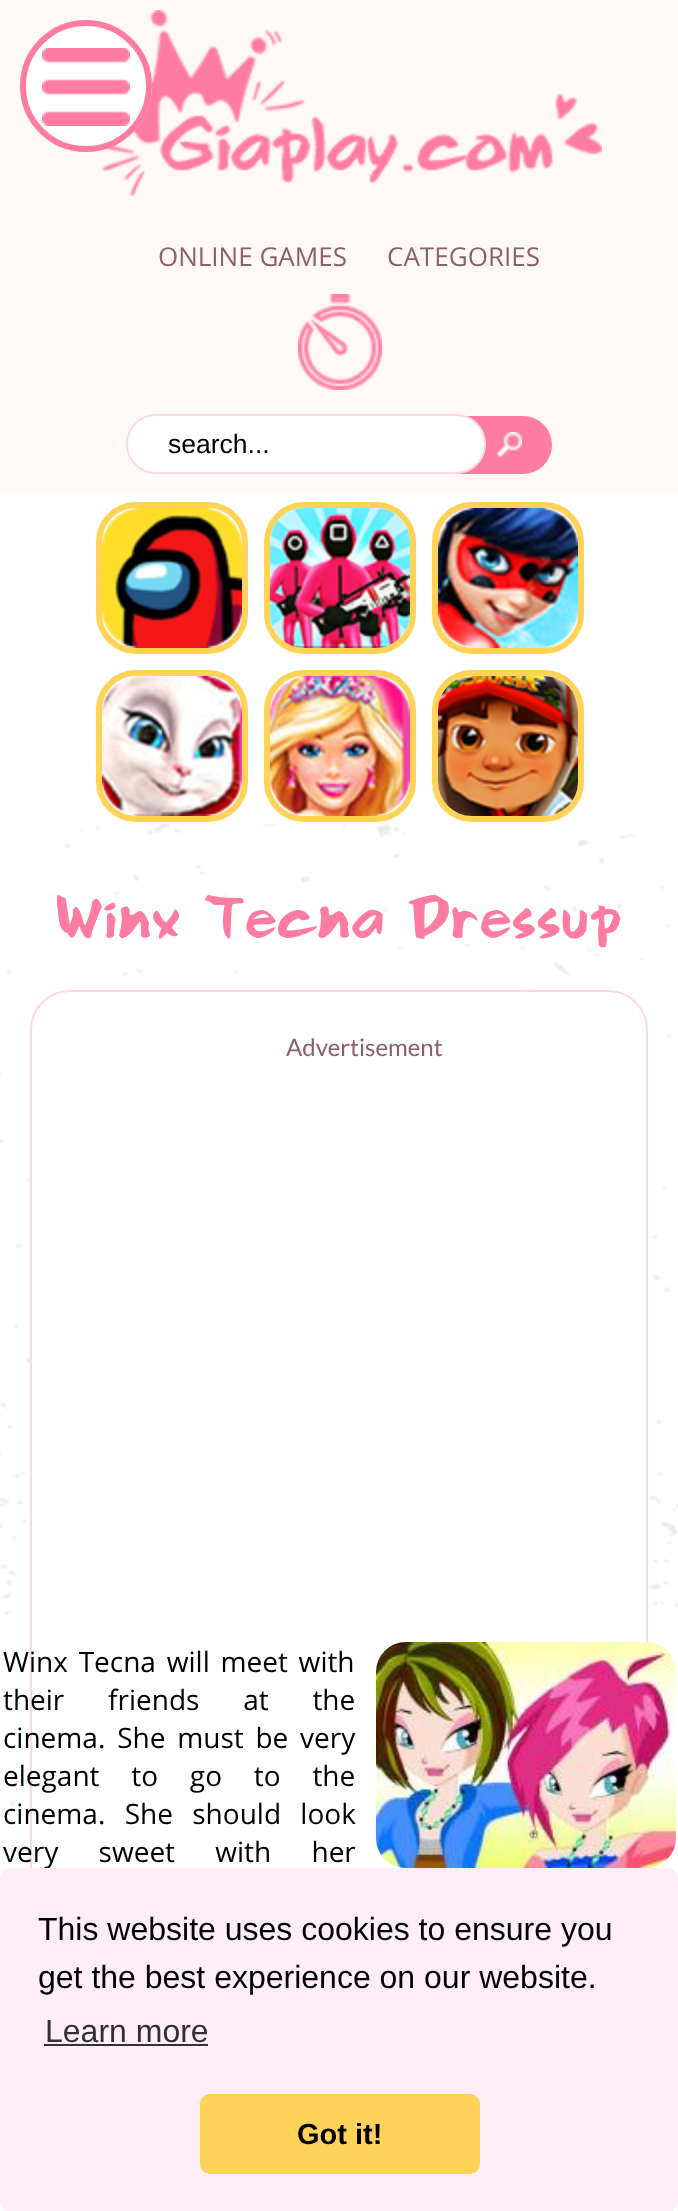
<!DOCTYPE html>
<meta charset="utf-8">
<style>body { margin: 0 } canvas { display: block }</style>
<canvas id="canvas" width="678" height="2211"></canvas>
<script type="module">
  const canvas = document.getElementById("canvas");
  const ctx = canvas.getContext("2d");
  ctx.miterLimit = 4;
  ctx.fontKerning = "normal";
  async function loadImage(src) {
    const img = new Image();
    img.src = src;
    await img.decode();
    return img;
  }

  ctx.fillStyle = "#ffffff";
  ctx.fillRect(0, 0, 678, 2211);
  ctx.fillStyle = "#fef9f7";
  ctx.fillRect(0, 0, 678, 494);
  ctx.drawImage(await loadImage("img2.png"), 101, 10, 501, 187);
  ctx.fillStyle = "#ffffff";
  ctx.beginPath();
  ctx.arc(86, 86, 66, 0, Math.PI * 2);
  ctx.fill();
  ctx.drawImage(await loadImage("img1.png"), 42, 48, 88, 78);
  ctx.beginPath();
  ctx.arc(86, 86, 63, 0, Math.PI * 2);
  ctx.strokeStyle = "#fe7ba3";
  ctx.lineWidth = 6;
  ctx.stroke();
  ctx.font = "26px Open Sans";
  ctx.fillStyle = "#8b5f6d";
  ctx.fillText("ONLINE GAMES", 158, 266);
  ctx.fillText("CATEGORIES", 387, 266);
  ctx.drawImage(await loadImage("img3.png"), 298, 294, 84, 96);
  ctx.fillStyle = "#fe7ba3";
  ctx.beginPath();
  ctx.roundRect(446, 416, 106, 58, [0, 29, 29, 0]);
  ctx.fill();
  ctx.fillStyle = "#ffffff";
  ctx.beginPath();
  ctx.roundRect(126, 414, 360, 60, 30);
  ctx.fill();
  ctx.beginPath();
  ctx.roundRect(127, 415, 358, 58, 29);
  ctx.strokeStyle = "rgba(254, 123, 163, 0.3)";
  ctx.lineWidth = 2;
  ctx.stroke();
  ctx.font = "26.5px Liberation Sans";
  ctx.fillStyle = "#000000";
  ctx.fillText("search...", 168, 453);
  ctx.drawImage(await loadImage("img4.png"), 496, 432, 26, 26);
  ctx.beginPath();
  ctx.roundRect(99, 505, 146, 146, 37);
  ctx.strokeStyle = "#ffd357";
  ctx.lineWidth = 6;
  ctx.stroke();
  ctx.drawImage(await loadImage("img5.png"), 102, 508, 140, 140);
  ctx.beginPath();
  ctx.roundRect(267, 505, 146, 146, 37);
  ctx.stroke();
  ctx.drawImage(await loadImage("img6.png"), 270, 508, 140, 140);
  ctx.beginPath();
  ctx.roundRect(435, 505, 146, 146, 37);
  ctx.stroke();
  ctx.drawImage(await loadImage("img7.png"), 438, 508, 140, 140);
  ctx.beginPath();
  ctx.roundRect(99, 673, 146, 146, 37);
  ctx.stroke();
  ctx.drawImage(await loadImage("img8.png"), 102, 676, 140, 140);
  ctx.beginPath();
  ctx.roundRect(267, 673, 146, 146, 37);
  ctx.stroke();
  ctx.drawImage(await loadImage("img9.png"), 270, 676, 140, 140);
  ctx.beginPath();
  ctx.roundRect(435, 673, 146, 146, 37);
  ctx.stroke();
  ctx.drawImage(await loadImage("img10.png"), 438, 676, 140, 140);
  ctx.drawImage(await loadImage("img11.png"), 0, 824, 678, 982);
  ctx.font = "48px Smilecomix";
  ctx.fillStyle = "#fe7ba3";
  ctx.fillText("Winx Tecna Dressup", 56, 938);
  ctx.fillStyle = "#ffffff";
  ctx.beginPath();
  ctx.roundRect(31, 991, 616, 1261, 39);
  ctx.fill();
  ctx.strokeStyle = "#ffd7e3";
  ctx.lineWidth = 2;
  ctx.stroke();
  ctx.font = "24px Lato";
  ctx.fillStyle = "#8b5f6d";
  ctx.fillText("Advertisement", 286, 1056);
  ctx.wordSpacing = "3.5px";
  ctx.font = "28px Open Sans";
  ctx.fillStyle = "#000000";
  ctx.fillText("Winx Tecna will meet with", 3, 1672);
  ctx.drawImage(await loadImage("img12.png"), 376, 1642, 300, 226);
  ctx.wordSpacing = "36.5px";
  ctx.fillText("their friends at the", 3, 1710);
  ctx.wordSpacing = "4.5px";
  ctx.fillText("cinema. She must be very", 3, 1748);
  ctx.wordSpacing = "24.5px";
  ctx.fillText("elegant to go to the", 3, 1786);
  ctx.wordSpacing = "12px";
  ctx.fillText("cinema. She should look", 3, 1824);
  ctx.wordSpacing = "33px";
  ctx.fillText("very sweet with her", 3, 1862);
  ctx.fillStyle = "#ffeef7";
  ctx.beginPath();
  ctx.roundRect(0, 1868, 678, 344, 10);
  ctx.fill();
  ctx.wordSpacing = "0px";
  ctx.font = "32px Liberation Sans";
  ctx.fillStyle = "#000000";
  ctx.fillText("This website uses cookies to ensure you", 38, 1940);
  ctx.fillText("get the best experience on our website.", 38, 1988);
  ctx.fillStyle = "#333031";
  ctx.fillText("Learn more", 45, 2042);
  ctx.fillRect(44, 2044, 164, 2);
  ctx.fillStyle = "#ffd357";
  ctx.beginPath();
  ctx.roundRect(200, 2094, 280, 80, 10);
  ctx.fill();
  ctx.font = "bold 29px Liberation Sans";
  ctx.fillStyle = "#000000";
  ctx.fillText("Got it!", 297, 2144);
</script>
